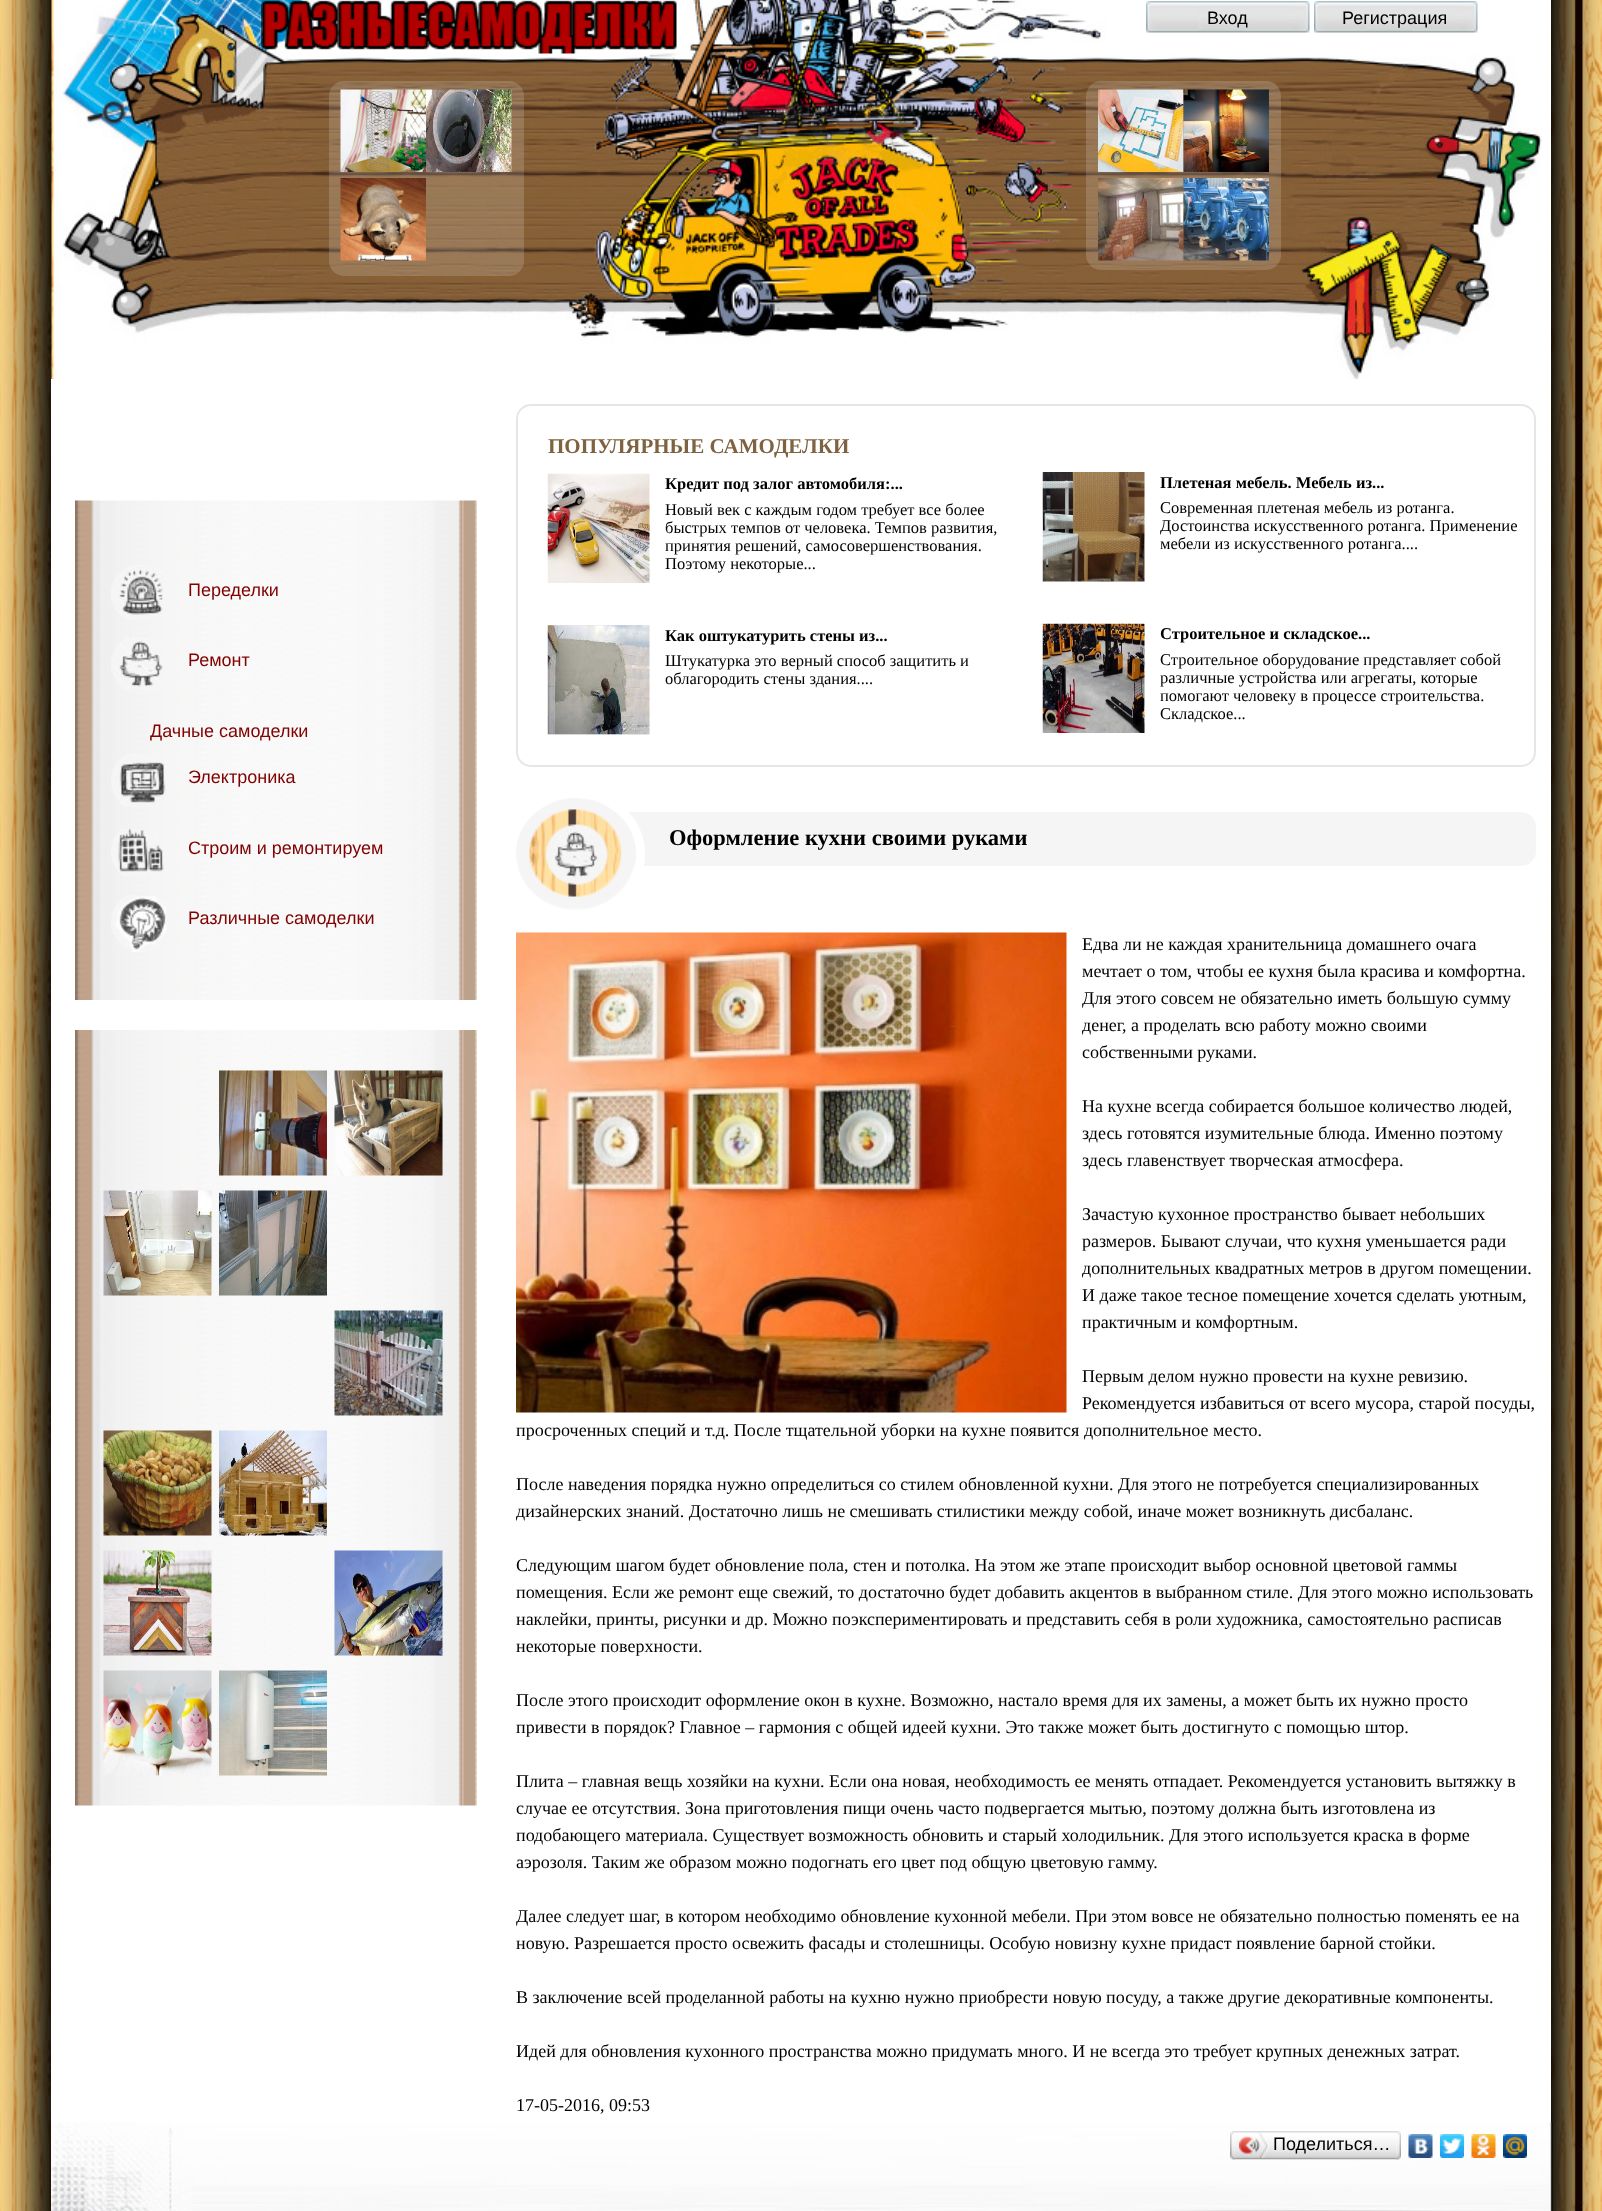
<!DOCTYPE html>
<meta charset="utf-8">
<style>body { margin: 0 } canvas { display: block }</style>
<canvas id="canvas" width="1602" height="2211"></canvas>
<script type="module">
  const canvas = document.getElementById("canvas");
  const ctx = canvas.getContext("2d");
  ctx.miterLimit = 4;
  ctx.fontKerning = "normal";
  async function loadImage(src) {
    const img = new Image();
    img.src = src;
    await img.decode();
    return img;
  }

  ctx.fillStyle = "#ffffff";
  ctx.fillRect(0, 0, 1602, 2211);
  ctx.drawImage(await loadImage("img1.png"), 0, 0, 1602, 2211);
  ctx.fillStyle = "#000000";
  ctx.filter = "blur(19px)";
  ctx.beginPath();
  ctx.rect(32, -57, 1500, 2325);
  ctx.fill();
  ctx.filter = "none";
  ctx.filter = "blur(19px)";
  ctx.beginPath();
  ctx.rect(71, -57, 1500, 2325);
  ctx.fill();
  ctx.filter = "none";
  ctx.fillStyle = "#ffffff";
  ctx.fillRect(51, 0, 1500, 2122);
  ctx.drawImage(await loadImage("img2.png"), 51, 0, 1491, 379);
  ctx.drawImage(await loadImage("img3.png"), 261, 0, 416, 54);
  ctx.drawImage(await loadImage("img4.png"), 1146, 1, 164, 32);
  ctx.font = "18px Liberation Sans";
  ctx.fillStyle = "#000000";
  ctx.fillText("Вход", 1207, 24);
  ctx.drawImage(await loadImage("img5.png"), 1314, 1, 164, 32);
  ctx.fillText("Регистрация", 1342, 24);
  ctx.fillStyle = "rgba(255, 255, 255, 0.16)";
  ctx.beginPath();
  ctx.roundRect(329, 81, 195, 195, 15);
  ctx.fill();
  ctx.drawImage(await loadImage("img6.png"), 340, 89, 86, 83);
  ctx.drawImage(await loadImage("img7.png"), 426, 89, 86, 83);
  ctx.drawImage(await loadImage("img8.png"), 340, 178, 86, 83);
  ctx.beginPath();
  ctx.roundRect(1086, 81, 195, 189, 15);
  ctx.fill();
  ctx.drawImage(await loadImage("img9.png"), 1098, 89, 86, 83);
  ctx.drawImage(await loadImage("img10.png"), 1183, 89, 86, 83);
  ctx.drawImage(await loadImage("img11.png"), 1098, 178, 86, 83);
  ctx.drawImage(await loadImage("img12.png"), 1183, 178, 86, 83);
  ctx.drawImage(await loadImage("img13.png"), 75, 500, 402, 500);
  ctx.drawImage(await loadImage("img14.png"), 111, 565, 52, 55);
  ctx.fillStyle = "#800202";
  ctx.fillText("Переделки", 188, 596);
  ctx.drawImage(await loadImage("img15.png"), 111, 637, 52, 54);
  ctx.fillText("Ремонт", 188, 666);
  ctx.fillText("Дачные самоделки", 150, 737);
  ctx.drawImage(await loadImage("img16.png"), 111, 754, 55, 53);
  ctx.fillText("Электроника", 188, 783);
  ctx.drawImage(await loadImage("img17.png"), 111, 829, 53, 48);
  ctx.fillText("Строим и ремонтируем", 188, 854);
  ctx.drawImage(await loadImage("img18.png"), 111, 895, 56, 57);
  ctx.fillText("Различные самоделки", 188, 924);
  ctx.drawImage(await loadImage("img19.png"), 75, 1030, 402, 776);
  ctx.drawImage(await loadImage("img20.png"), 219, 1070, 108, 106);
  ctx.drawImage(await loadImage("img21.png"), 334, 1070, 109, 106);
  ctx.drawImage(await loadImage("img22.png"), 103, 1190, 109, 106);
  ctx.drawImage(await loadImage("img23.png"), 219, 1190, 108, 106);
  ctx.drawImage(await loadImage("img24.png"), 334, 1310, 109, 106);
  ctx.drawImage(await loadImage("img25.png"), 103, 1430, 109, 106);
  ctx.drawImage(await loadImage("img26.png"), 219, 1430, 108, 106);
  ctx.drawImage(await loadImage("img27.png"), 103, 1550, 109, 106);
  ctx.drawImage(await loadImage("img28.png"), 334, 1550, 109, 106);
  ctx.drawImage(await loadImage("img29.png"), 103, 1670, 109, 106);
  ctx.drawImage(await loadImage("img30.png"), 219, 1670, 108, 106);
  ctx.beginPath();
  ctx.roundRect(517, 405, 1018, 361, 14);
  ctx.strokeStyle = "#e6e6e6";
  ctx.lineWidth = 2;
  ctx.stroke();
  ctx.font = "bold 21px Liberation Serif";
  ctx.fillStyle = "#7f6340";
  ctx.fillText("ПОПУЛЯРНЫЕ САМОДЕЛКИ", 548, 453);
  ctx.drawImage(await loadImage("img31.png"), 547, 473, 103, 110);
  ctx.font = "bold 16.5px Liberation Serif";
  ctx.fillStyle = "#000000";
  ctx.fillText("Кредит под залог автомобиля:...", 665, 489);
  ctx.font = "16.5px Liberation Serif";
  ctx.fillText("Новый век с каждым годом требует все более", 665, 515);
  ctx.fillText("быстрых темпов от человека. Темпов развития,", 665, 533);
  ctx.fillText("принятия решений, самосовершенствования.", 665, 551);
  ctx.fillText("Поэтому некоторые...", 665, 569);
  ctx.drawImage(await loadImage("img32.png"), 547, 625, 103, 110);
  ctx.font = "bold 16.5px Liberation Serif";
  ctx.fillText("Как оштукатурить стены из...", 665, 641);
  ctx.font = "16.5px Liberation Serif";
  ctx.fillText("Штукатурка это верный способ защитить и", 665, 666);
  ctx.fillText("облагородить стены здания....", 665, 684);
  ctx.drawImage(await loadImage("img33.png"), 1042, 472, 103, 110);
  ctx.font = "bold 16.5px Liberation Serif";
  ctx.fillText("Плетеная мебель. Мебель из...", 1160, 488);
  ctx.font = "16.5px Liberation Serif";
  ctx.fillText("Современная плетеная мебель из ротанга.", 1160, 513);
  ctx.fillText("Достоинства искусственного ротанга. Применение", 1160, 531);
  ctx.fillText("мебели из искусственного ротанга....", 1160, 549);
  ctx.drawImage(await loadImage("img34.png"), 1042, 623, 103, 110);
  ctx.font = "bold 16.5px Liberation Serif";
  ctx.fillText("Строительное и складское...", 1160, 639);
  ctx.font = "16.5px Liberation Serif";
  ctx.fillText("Строительное оборудование представляет собой", 1160, 665);
  ctx.fillText("различные устройства или агрегаты, которые", 1160, 683);
  ctx.fillText("помогают человеку в процессе строительства.", 1160, 701);
  ctx.fillText("Складское...", 1160, 719);
  ctx.fillStyle = "#f5f5f5";
  ctx.beginPath();
  ctx.roundRect(516, 812, 1020, 54, 15);
  ctx.fill();
  ctx.drawImage(await loadImage("img35.png"), 516, 798, 118, 112);
  ctx.save();
  ctx.beginPath();
  ctx.rect(516, 789, 1020, 131);
  ctx.clip();
  ctx.beginPath();
  ctx.moveTo(576, 793.5);
  ctx.bezierCurveTo(611.5, 793.5, 640.5, 820.5, 640.5, 854);
  ctx.bezierCurveTo(640.5, 888, 611.5, 915, 576, 915);
  ctx.bezierCurveTo(540.5, 915, 511.5, 888, 511.5, 854);
  ctx.bezierCurveTo(511.5, 820.5, 540.5, 793.5, 576, 793.5);
  ctx.closePath();
  ctx.strokeStyle = "#ffffff";
  ctx.lineWidth = 9;
  ctx.stroke();
  ctx.restore();
  ctx.drawImage(await loadImage("img36.png"), 546, 824, 62, 61);
  ctx.font = "bold 22.5px Liberation Serif";
  ctx.fillStyle = "#000000";
  ctx.fillText("Оформление кухни своими руками", 669, 845);
  ctx.drawImage(await loadImage("img37.png"), 516, 932, 551, 481);
  ctx.font = "18px Liberation Serif";
  ctx.fillText("Едва ли не каждая хранительница домашнего очага", 1082, 950);
  ctx.fillText("мечтает о том, чтобы ее кухня была красива и комфортна.", 1082, 977);
  ctx.fillText("Для этого совсем не обязательно иметь большую сумму", 1082, 1004);
  ctx.fillText("денег, а проделать всю работу можно своими", 1082, 1031);
  ctx.fillText("собственными руками.", 1082, 1058);
  ctx.fillText("На кухне всегда собирается большое количество людей,", 1082, 1112);
  ctx.fillText("здесь готовятся изумительные блюда. Именно поэтому", 1082, 1139);
  ctx.fillText("здесь главенствует творческая атмосфера.", 1082, 1166);
  ctx.fillText("Зачастую кухонное пространство бывает небольших", 1082, 1220);
  ctx.fillText("размеров. Бывают случаи, что кухня уменьшается ради", 1082, 1247);
  ctx.fillText("дополнительных квадратных метров в другом помещении.", 1082, 1274);
  ctx.fillText("И даже такое тесное помещение хочется сделать уютным,", 1082, 1301);
  ctx.fillText("практичным и комфортным.", 1082, 1328);
  ctx.fillText("Первым делом нужно провести на кухне ревизию.", 1082, 1382);
  ctx.fillText("Рекомендуется избавиться от всего мусора, старой посуды,", 1082, 1409);
  ctx.fillText("просроченных специй и т.д. После тщательной уборки на кухне появится дополнительное место.", 516, 1436);
  ctx.fillText("После наведения порядка нужно определиться со стилем обновленной кухни. Для этого не потребуется специализированных", 516, 1490);
  ctx.fillText("дизайнерских знаний. Достаточно лишь не смешивать стилистики между собой, иначе может возникнуть дисбаланс.", 516, 1517);
  ctx.fillText("Следующим шагом будет обновление пола, стен и потолка. На этом же этапе происходит выбор основной цветовой гаммы", 516, 1571);
  ctx.fillText("помещения. Если же ремонт еще свежий, то достаточно будет добавить акцентов в выбранном стиле. Для этого можно использовать", 516, 1598);
  ctx.fillText("наклейки, принты, рисунки и др. Можно поэкспериментировать и представить себя в роли художника, самостоятельно расписав", 516, 1625);
  ctx.fillText("некоторые поверхности.", 516, 1652);
  ctx.fillText("После этого происходит оформление окон в кухне. Возможно, настало время для их замены, а может быть их нужно просто", 516, 1706);
  ctx.fillText("привести в порядок? Главное – гармония с общей идеей кухни. Это также может быть достигнуто с помощью штор.", 516, 1733);
  ctx.fillText("Плита – главная вещь хозяйки на кухни. Если она новая, необходимость ее менять отпадает. Рекомендуется установить вытяжку в", 516, 1787);
  ctx.fillText("случае ее отсутствия. Зона приготовления пищи очень часто подвергается мытью, поэтому должна быть изготовлена из", 516, 1814);
  ctx.fillText("подобающего материала. Существует возможность обновить и старый холодильник. Для этого используется краска в форме", 516, 1841);
  ctx.fillText("аэрозоля. Таким же образом можно подогнать его цвет под общую цветовую гамму.", 516, 1868);
  ctx.fillText("Далее следует шаг, в котором необходимо обновление кухонной мебели. При этом вовсе не обязательно полностью поменять ее на", 516, 1922);
  ctx.fillText("новую. Разрешается просто освежить фасады и столешницы. Особую новизну кухне придаст появление барной стойки.", 516, 1949);
  ctx.fillText("В заключение всей проделанной работы на кухню нужно приобрести новую посуду, а также другие декоративные компоненты.", 516, 2003);
  ctx.fillText("Идей для обновления кухонного пространства можно придумать много. И не всегда это требует крупных денежных затрат.", 516, 2057);
  ctx.fillText("17-05-2016, 09:53", 516, 2111);
  ctx.drawImage(await loadImage("img46.png"), 51, 2122, 1502, 89);
  ctx.drawImage(await loadImage("img38.png"), 1234, 2131, 163, 29);
  ctx.drawImage(await loadImage("img39.png"), 1230, 2131, 5, 29);
  ctx.drawImage(await loadImage("img40.png"), 1239, 2132, 30, 26);
  ctx.font = "18px Liberation Sans";
  ctx.fillText("Поделиться…", 1273, 2150);
  ctx.drawImage(await loadImage("img41.png"), 1396, 2131, 5, 29);
  ctx.drawImage(await loadImage("img42.png"), 1408, 2134, 25, 24);
  ctx.drawImage(await loadImage("img43.png"), 1440, 2134, 24, 24);
  ctx.drawImage(await loadImage("img44.png"), 1471, 2134, 25, 24);
  ctx.drawImage(await loadImage("img45.png"), 1503, 2134, 24, 24);
</script>
